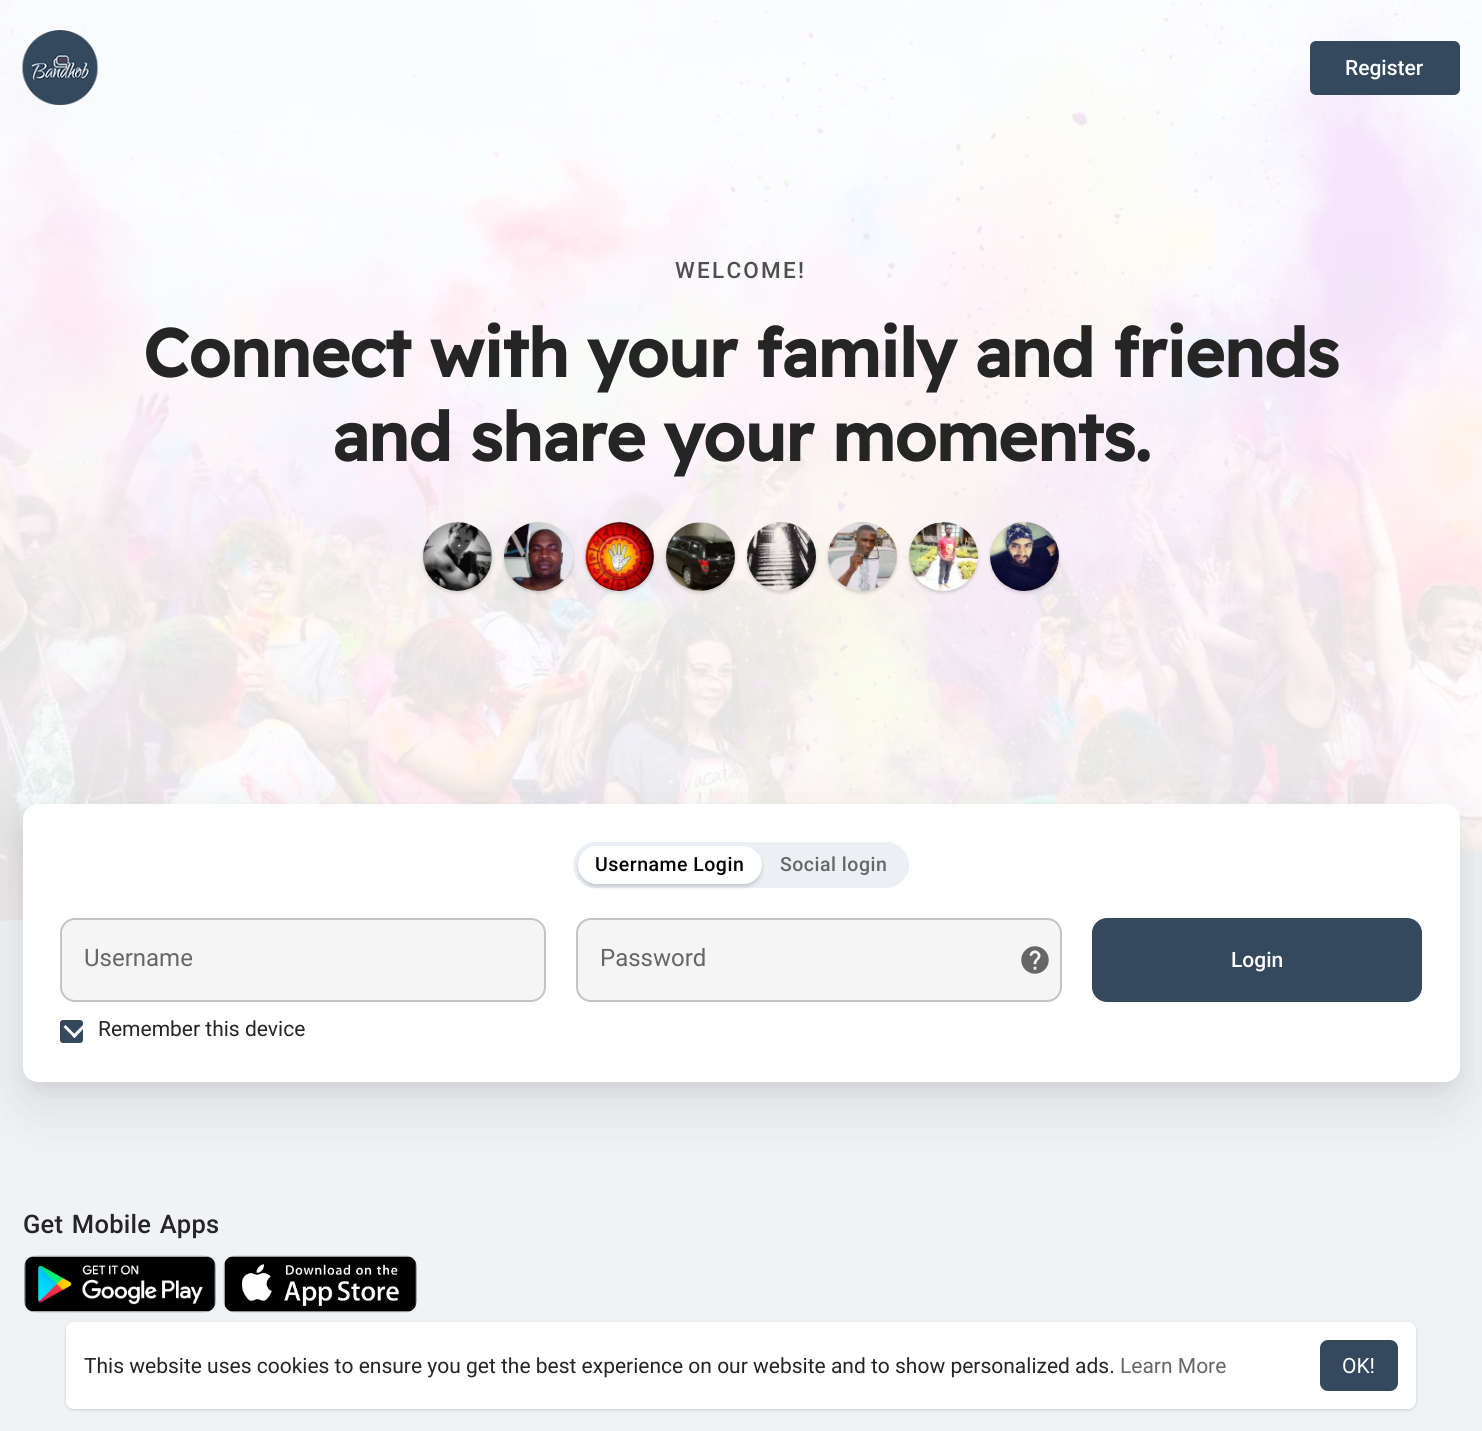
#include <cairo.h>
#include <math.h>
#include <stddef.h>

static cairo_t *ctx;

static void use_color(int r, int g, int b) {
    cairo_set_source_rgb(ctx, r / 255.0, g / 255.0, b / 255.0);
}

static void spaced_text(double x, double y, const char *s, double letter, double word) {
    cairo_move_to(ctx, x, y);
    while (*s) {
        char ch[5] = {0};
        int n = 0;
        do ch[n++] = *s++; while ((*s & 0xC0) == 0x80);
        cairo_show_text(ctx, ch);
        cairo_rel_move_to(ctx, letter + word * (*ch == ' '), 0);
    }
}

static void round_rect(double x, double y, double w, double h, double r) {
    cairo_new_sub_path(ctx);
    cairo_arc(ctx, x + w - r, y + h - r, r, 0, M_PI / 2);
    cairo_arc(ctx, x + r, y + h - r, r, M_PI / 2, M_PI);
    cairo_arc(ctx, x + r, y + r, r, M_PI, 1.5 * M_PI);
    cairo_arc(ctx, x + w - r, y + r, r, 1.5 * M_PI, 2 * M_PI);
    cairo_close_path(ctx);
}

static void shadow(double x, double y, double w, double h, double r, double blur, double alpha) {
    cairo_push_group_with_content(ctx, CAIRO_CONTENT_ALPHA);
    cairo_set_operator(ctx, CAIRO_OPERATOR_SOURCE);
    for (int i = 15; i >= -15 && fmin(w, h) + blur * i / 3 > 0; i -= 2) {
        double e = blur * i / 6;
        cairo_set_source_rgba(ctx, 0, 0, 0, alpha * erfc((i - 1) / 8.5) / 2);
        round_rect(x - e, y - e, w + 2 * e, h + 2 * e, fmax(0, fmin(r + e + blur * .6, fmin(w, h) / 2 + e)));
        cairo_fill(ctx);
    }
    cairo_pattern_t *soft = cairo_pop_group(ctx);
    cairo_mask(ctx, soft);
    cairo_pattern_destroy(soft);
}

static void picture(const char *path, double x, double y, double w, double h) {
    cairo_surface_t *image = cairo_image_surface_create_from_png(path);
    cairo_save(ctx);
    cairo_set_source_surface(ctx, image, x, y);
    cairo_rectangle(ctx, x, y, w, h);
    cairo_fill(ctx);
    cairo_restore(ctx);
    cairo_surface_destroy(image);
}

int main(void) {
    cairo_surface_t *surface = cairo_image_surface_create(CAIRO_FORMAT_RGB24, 1482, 1431);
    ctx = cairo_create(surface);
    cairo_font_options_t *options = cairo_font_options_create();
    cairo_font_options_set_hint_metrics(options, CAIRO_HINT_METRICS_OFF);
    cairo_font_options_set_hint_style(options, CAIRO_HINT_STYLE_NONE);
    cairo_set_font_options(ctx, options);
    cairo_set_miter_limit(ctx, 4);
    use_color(240, 242, 245);
    cairo_paint(ctx);
    use_color(255, 255, 255);
    cairo_rectangle(ctx, 0, 0, 1482, 921);
    cairo_fill(ctx);
    picture("img1.png", 0, 0, 1482, 921);
    picture("img2.png", 22, 30, 76, 75);
    use_color(52, 73, 94);
    round_rect(1310, 41, 150, 54, 6);
    cairo_fill(ctx);
    cairo_select_font_face(ctx, "Roboto Medium", CAIRO_FONT_SLANT_NORMAL, CAIRO_FONT_WEIGHT_NORMAL);
    cairo_set_font_size(ctx, 21);
    use_color(255, 255, 255);
    cairo_move_to(ctx, 1345, 75);
    cairo_show_text(ctx, "Register");
    cairo_set_font_size(ctx, 22.5);
    use_color(80, 79, 80);
    spaced_text(675, 278, "WELCOME!", 2.25, 0);
    cairo_select_font_face(ctx, "Readex Pro", CAIRO_FONT_SLANT_NORMAL, CAIRO_FONT_WEIGHT_BOLD);
    cairo_set_font_size(ctx, 67.5);
    use_color(37, 37, 37);
    spaced_text(143, 377, "Connect with your family and friends", -0.75, 0);
    spaced_text(332, 461, "and share your moments.", -0.75, 0);
    use_color(0, 0, 0);
    shadow(423, 524, 69, 69, 34.5, 1.5, 0.06);
    shadow(423, 524, 69, 69, 34.5, 2, 0.1);
    picture("img3.png", 423, 522, 69, 69);
    shadow(504, 524, 69, 69, 34.5, 1.5, 0.06);
    shadow(504, 524, 69, 69, 34.5, 2, 0.1);
    picture("img4.png", 504, 522, 69, 69);
    shadow(585, 524, 69, 69, 34.5, 1.5, 0.06);
    shadow(585, 524, 69, 69, 34.5, 2, 0.1);
    picture("img5.png", 585, 522, 69, 69);
    shadow(666, 524, 69, 69, 34.5, 1.5, 0.06);
    shadow(666, 524, 69, 69, 34.5, 2, 0.1);
    picture("img6.png", 666, 522, 69, 69);
    shadow(747, 524, 69, 69, 34.5, 1.5, 0.06);
    shadow(747, 524, 69, 69, 34.5, 2, 0.1);
    picture("img7.png", 747, 522, 69, 69);
    shadow(828, 524, 69, 69, 34.5, 1.5, 0.06);
    shadow(828, 524, 69, 69, 34.5, 2, 0.1);
    picture("img8.png", 828, 522, 69, 69);
    shadow(909, 524, 69, 69, 34.5, 1.5, 0.06);
    shadow(909, 524, 69, 69, 34.5, 2, 0.1);
    picture("img9.png", 909, 522, 69, 69);
    shadow(990, 524, 69, 69, 34.5, 1.5, 0.06);
    shadow(990, 524, 69, 69, 34.5, 2, 0.1);
    picture("img10.png", 990, 522, 69, 69);
    cairo_save(ctx);
    cairo_rectangle(ctx, 0, 0, 1482, 969);
    cairo_clip(ctx);
    use_color(240, 242, 245);
    cairo_new_path(ctx);
    cairo_move_to(ctx, -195, 930);
    cairo_line_to(ctx, 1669, 842);
    cairo_line_to(ctx, 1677, 1022);
    cairo_line_to(ctx, -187, 1109);
    cairo_close_path(ctx);
    cairo_fill(ctx);
    cairo_restore(ctx);
    shadow(23, 827, 1437, 277, 15, 30, 0.1);
    shadow(23, 812, 1437, 277, 15, 7.5, 0.05);
    use_color(255, 255, 255);
    round_rect(23, 804, 1437, 278, 15);
    cairo_fill(ctx);
    use_color(236, 240, 245);
    round_rect(573, 842, 336, 46, 23);
    cairo_fill(ctx);
    use_color(0, 0, 0);
    shadow(578, 849, 184, 38, 19, 2, 0.15);
    use_color(255, 255, 255);
    round_rect(578, 846, 184, 38, 19);
    cairo_fill(ctx);
    cairo_select_font_face(ctx, "Roboto Medium", CAIRO_FONT_SLANT_NORMAL, CAIRO_FONT_WEIGHT_NORMAL);
    cairo_set_font_size(ctx, 19.5);
    use_color(0, 0, 0);
    spaced_text(595, 871, "Username Login", 0.5, 0);
    use_color(102, 102, 102);
    spaced_text(780, 871, "Social login", 0.5, 0);
    use_color(245, 245, 245);
    round_rect(60, 918, 486, 84, 15);
    cairo_fill(ctx);
    round_rect(61, 919, 484, 82, 14);
    cairo_set_source_rgba(ctx, 0, 0, 0, 0.2);
    cairo_stroke(ctx);
    cairo_select_font_face(ctx, "Roboto", CAIRO_FONT_SLANT_NORMAL, CAIRO_FONT_WEIGHT_NORMAL);
    cairo_set_font_size(ctx, 24);
    use_color(102, 102, 102);
    cairo_move_to(ctx, 84, 966);
    cairo_show_text(ctx, "Username");
    use_color(245, 245, 245);
    round_rect(576, 918, 486, 84, 15);
    cairo_fill(ctx);
    round_rect(577, 919, 484, 82, 14);
    cairo_set_source_rgba(ctx, 0, 0, 0, 0.2);
    cairo_stroke(ctx);
    use_color(102, 102, 102);
    cairo_move_to(ctx, 600, 966);
    cairo_show_text(ctx, "Password");
    picture("img11.png", 1021, 946, 28, 28);
    use_color(52, 73, 94);
    round_rect(1092, 918, 330, 84, 15);
    cairo_fill(ctx);
    cairo_select_font_face(ctx, "Roboto Medium", CAIRO_FONT_SLANT_NORMAL, CAIRO_FONT_WEIGHT_NORMAL);
    cairo_set_font_size(ctx, 21);
    use_color(255, 255, 255);
    cairo_move_to(ctx, 1231, 967);
    cairo_show_text(ctx, "Login");
    use_color(52, 73, 94);
    round_rect(60, 1020, 23, 23, 3);
    cairo_fill(ctx);
    cairo_select_font_face(ctx, "Roboto", CAIRO_FONT_SLANT_NORMAL, CAIRO_FONT_WEIGHT_NORMAL);
    use_color(37, 37, 37);
    cairo_move_to(ctx, 98, 1036);
    cairo_show_text(ctx, "Remember this device");
    use_color(255, 255, 255);
    cairo_new_path(ctx);
    cairo_move_to(ctx, 72, 1036);
    cairo_line_to(ctx, 83, 1025);
    cairo_line_to(ctx, 85, 1027);
    cairo_line_to(ctx, 74.5, 1038);
    cairo_close_path(ctx);
    cairo_fill(ctx);
    cairo_new_path(ctx);
    cairo_move_to(ctx, 63.5, 1027);
    cairo_line_to(ctx, 65.5, 1025);
    cairo_line_to(ctx, 76.5, 1036);
    cairo_line_to(ctx, 74.5, 1038);
    cairo_close_path(ctx);
    cairo_fill(ctx);
    cairo_select_font_face(ctx, "Roboto Medium", CAIRO_FONT_SLANT_NORMAL, CAIRO_FONT_WEIGHT_NORMAL);
    cairo_set_font_size(ctx, 25.5);
    use_color(37, 37, 37);
    spaced_text(23, 1233, "Get Mobile Apps", 0.25, 2);
    picture("img12.png", 24, 1255, 192, 58);
    picture("img13.png", 223, 1255, 194, 58);
    use_color(0, 0, 0);
    shadow(66, 1323, 1350, 87, 8, 1.5, 0.06);
    shadow(66, 1323, 1350, 87, 8, 2, 0.1);
    use_color(255, 255, 255);
    round_rect(66, 1322, 1350, 87, 8);
    cairo_fill(ctx);
    cairo_select_font_face(ctx, "Roboto", CAIRO_FONT_SLANT_NORMAL, CAIRO_FONT_WEIGHT_NORMAL);
    cairo_set_font_size(ctx, 21);
    use_color(37, 37, 37);
    cairo_move_to(ctx, 84, 1373);
    cairo_show_text(ctx, "This website uses cookies to ensure you get the best experience on our website and to show personalized ads.");
    use_color(102, 102, 102);
    cairo_move_to(ctx, 1120, 1373);
    cairo_show_text(ctx, "Learn More");
    use_color(52, 73, 94);
    round_rect(1320, 1340, 78, 51, 8);
    cairo_fill(ctx);
    use_color(255, 255, 255);
    cairo_move_to(ctx, 1342, 1373);
    cairo_show_text(ctx, "OK!");
    cairo_surface_write_to_png(surface, "result.png");
    cairo_font_options_destroy(options);
    cairo_destroy(ctx);
    cairo_surface_destroy(surface);
    return 0;
}
